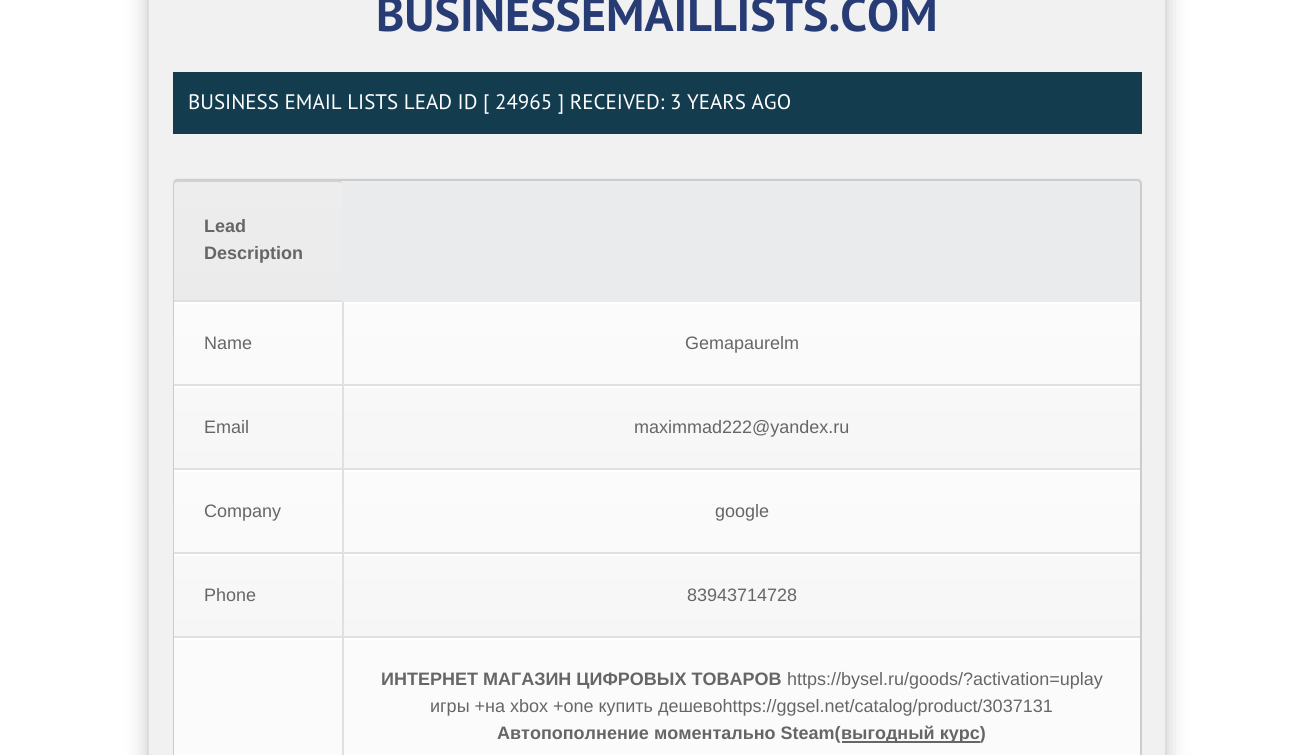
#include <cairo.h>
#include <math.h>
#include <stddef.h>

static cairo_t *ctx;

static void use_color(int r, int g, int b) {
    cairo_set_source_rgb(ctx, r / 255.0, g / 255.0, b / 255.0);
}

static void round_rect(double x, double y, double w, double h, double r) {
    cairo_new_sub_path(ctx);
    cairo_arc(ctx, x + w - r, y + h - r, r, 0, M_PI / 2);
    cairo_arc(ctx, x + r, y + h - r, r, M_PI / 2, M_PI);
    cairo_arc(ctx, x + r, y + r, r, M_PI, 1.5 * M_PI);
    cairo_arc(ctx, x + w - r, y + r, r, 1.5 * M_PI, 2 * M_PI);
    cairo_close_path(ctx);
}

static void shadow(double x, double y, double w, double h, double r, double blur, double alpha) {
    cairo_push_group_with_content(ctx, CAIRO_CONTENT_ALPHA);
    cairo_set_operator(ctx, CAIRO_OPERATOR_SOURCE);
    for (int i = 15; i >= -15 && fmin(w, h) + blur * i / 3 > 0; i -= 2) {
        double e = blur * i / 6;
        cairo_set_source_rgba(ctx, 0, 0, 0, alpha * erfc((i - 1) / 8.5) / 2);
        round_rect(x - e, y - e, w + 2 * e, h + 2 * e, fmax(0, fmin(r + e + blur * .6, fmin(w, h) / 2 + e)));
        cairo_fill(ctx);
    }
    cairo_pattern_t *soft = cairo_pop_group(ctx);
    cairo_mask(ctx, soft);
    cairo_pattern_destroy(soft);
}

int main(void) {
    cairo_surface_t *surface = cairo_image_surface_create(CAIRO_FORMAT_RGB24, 1314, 755);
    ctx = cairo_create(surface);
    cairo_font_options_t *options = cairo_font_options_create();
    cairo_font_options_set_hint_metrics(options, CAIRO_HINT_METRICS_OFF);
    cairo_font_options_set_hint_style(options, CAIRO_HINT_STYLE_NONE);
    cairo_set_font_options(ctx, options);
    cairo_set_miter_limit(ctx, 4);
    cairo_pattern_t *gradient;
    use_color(255, 255, 255);
    cairo_paint(ctx);
    use_color(50, 50, 50);
    shadow(147, -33, 1020, 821, 0, 11, 0.27);
    use_color(241, 241, 241);
    cairo_rectangle(ctx, 148, -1, 1018, 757);
    cairo_fill_preserve(ctx);
    use_color(221, 221, 221);
    cairo_stroke(ctx);
    cairo_select_font_face(ctx, "PT Sans", CAIRO_FONT_SLANT_NORMAL, CAIRO_FONT_WEIGHT_BOLD);
    cairo_set_font_size(ctx, 48);
    use_color(39, 60, 117);
    cairo_move_to(ctx, 376, 31);
    cairo_show_text(ctx, "BUSINESSEMAILLISTS.COM");
    use_color(19, 60, 79);
    cairo_rectangle(ctx, 173, 72, 969, 62);
    cairo_fill(ctx);
    cairo_select_font_face(ctx, "PT Sans", CAIRO_FONT_SLANT_NORMAL, CAIRO_FONT_WEIGHT_NORMAL);
    cairo_set_font_size(ctx, 21);
    use_color(255, 255, 255);
    cairo_move_to(ctx, 188, 109);
    cairo_show_text(ctx, "BUSINESS EMAIL LISTS LEAD ID [ 24965 ] RECEIVED: 3 YEARS AGO");
    cairo_save(ctx);
    cairo_rectangle(ctx, 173, 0, 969, 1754);
    cairo_clip(ctx);
    use_color(209, 209, 209);
    shadow(173, 180, 969, 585, 5, 1.5, 1);
    cairo_restore(ctx);
    use_color(234, 235, 236);
    round_rect(174, 180, 967, 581, 4);
    cairo_fill_preserve(ctx);
    use_color(204, 204, 204);
    cairo_stroke(ctx);
    cairo_save(ctx);
    cairo_new_path(ctx);
    cairo_move_to(ctx, 179, 180);
    cairo_line_to(ctx, 337, 180);
    cairo_curve_to(ctx, 340, 180, 342, 182, 342, 185);
    cairo_line_to(ctx, 342, 302);
    cairo_line_to(ctx, 174, 302);
    cairo_line_to(ctx, 174, 185);
    cairo_curve_to(ctx, 174, 182, 176, 180, 179, 180);
    cairo_close_path(ctx);
    cairo_clip(ctx);
    gradient = cairo_pattern_create_linear(174, 182, 174, 300);
    cairo_pattern_add_color_stop_rgba(gradient, 0, 0.929, 0.929, 0.929, 1);
    cairo_pattern_add_color_stop_rgba(gradient, 1, 0.922, 0.922, 0.922, 1);
    cairo_set_source(ctx, gradient);
    cairo_pattern_destroy(gradient);
    cairo_rectangle(ctx, 174, 182, 168, 118);
    cairo_fill(ctx);
    cairo_restore(ctx);
    use_color(209, 209, 209);
    cairo_new_path(ctx);
    cairo_move_to(ctx, 178, 180);
    cairo_curve_to(ctx, 176, 180, 174, 182, 174, 184);
    cairo_curve_to(ctx, 174, 183, 176, 182, 178, 182);
    cairo_line_to(ctx, 338, 182);
    cairo_curve_to(ctx, 340, 182, 342, 183, 342, 184);
    cairo_curve_to(ctx, 342, 182, 340, 180, 338, 180);
    cairo_close_path(ctx);
    cairo_fill(ctx);
    use_color(224, 224, 224);
    cairo_rectangle(ctx, 174, 300, 168, 2);
    cairo_fill(ctx);
    cairo_select_font_face(ctx, "Liberation Sans", CAIRO_FONT_SLANT_NORMAL, CAIRO_FONT_WEIGHT_BOLD);
    cairo_set_font_size(ctx, 18);
    use_color(102, 102, 102);
    cairo_move_to(ctx, 204, 232);
    cairo_show_text(ctx, "Lead");
    cairo_move_to(ctx, 204, 259);
    cairo_show_text(ctx, "Description");
    gradient = cairo_pattern_create_linear(174, 303, 174, 384);
    cairo_pattern_add_color_stop_rgba(gradient, 0, 0.984, 0.984, 0.984, 1);
    cairo_pattern_add_color_stop_rgba(gradient, 1, 0.98, 0.98, 0.98, 1);
    cairo_set_source(ctx, gradient);
    cairo_pattern_destroy(gradient);
    cairo_rectangle(ctx, 174, 304, 168, 80);
    cairo_fill(ctx);
    use_color(255, 255, 255);
    cairo_rectangle(ctx, 174, 302, 966, 2);
    cairo_fill(ctx);
    use_color(224, 224, 224);
    cairo_rectangle(ctx, 174, 384, 966, 2);
    cairo_fill(ctx);
    cairo_select_font_face(ctx, "Liberation Sans", CAIRO_FONT_SLANT_NORMAL, CAIRO_FONT_WEIGHT_NORMAL);
    use_color(102, 102, 102);
    cairo_move_to(ctx, 204, 349);
    cairo_show_text(ctx, "Name");
    gradient = cairo_pattern_create_linear(344, 303, 344, 384);
    cairo_pattern_add_color_stop_rgba(gradient, 0, 0.984, 0.984, 0.984, 1);
    cairo_pattern_add_color_stop_rgba(gradient, 1, 0.98, 0.98, 0.98, 1);
    cairo_set_source(ctx, gradient);
    cairo_pattern_destroy(gradient);
    cairo_rectangle(ctx, 344, 304, 796, 80);
    cairo_fill(ctx);
    use_color(224, 224, 224);
    cairo_rectangle(ctx, 342, 302, 2, 84);
    cairo_fill(ctx);
    use_color(102, 102, 102);
    cairo_move_to(ctx, 685, 349);
    cairo_show_text(ctx, "Gemapaurelm");
    gradient = cairo_pattern_create_linear(174, 387, 174, 468);
    cairo_pattern_add_color_stop_rgba(gradient, 0, 0.973, 0.973, 0.973, 1);
    cairo_pattern_add_color_stop_rgba(gradient, 1, 0.965, 0.965, 0.965, 1);
    cairo_set_source(ctx, gradient);
    cairo_pattern_destroy(gradient);
    cairo_rectangle(ctx, 174, 388, 168, 80);
    cairo_fill(ctx);
    use_color(255, 255, 255);
    cairo_rectangle(ctx, 174, 386, 966, 2);
    cairo_fill(ctx);
    use_color(224, 224, 224);
    cairo_rectangle(ctx, 174, 468, 966, 2);
    cairo_fill(ctx);
    use_color(102, 102, 102);
    cairo_move_to(ctx, 204, 433);
    cairo_show_text(ctx, "Email");
    gradient = cairo_pattern_create_linear(344, 387, 344, 468);
    cairo_pattern_add_color_stop_rgba(gradient, 0, 0.973, 0.973, 0.973, 1);
    cairo_pattern_add_color_stop_rgba(gradient, 1, 0.965, 0.965, 0.965, 1);
    cairo_set_source(ctx, gradient);
    cairo_pattern_destroy(gradient);
    cairo_rectangle(ctx, 344, 388, 796, 80);
    cairo_fill(ctx);
    use_color(224, 224, 224);
    cairo_rectangle(ctx, 342, 386, 2, 84);
    cairo_fill(ctx);
    use_color(102, 102, 102);
    cairo_move_to(ctx, 634, 433);
    cairo_show_text(ctx, "maximmad222@yandex.ru");
    gradient = cairo_pattern_create_linear(174, 471, 174, 552);
    cairo_pattern_add_color_stop_rgba(gradient, 0, 0.984, 0.984, 0.984, 1);
    cairo_pattern_add_color_stop_rgba(gradient, 1, 0.98, 0.98, 0.98, 1);
    cairo_set_source(ctx, gradient);
    cairo_pattern_destroy(gradient);
    cairo_rectangle(ctx, 174, 472, 168, 80);
    cairo_fill(ctx);
    use_color(255, 255, 255);
    cairo_rectangle(ctx, 174, 470, 966, 2);
    cairo_fill(ctx);
    use_color(224, 224, 224);
    cairo_rectangle(ctx, 174, 552, 966, 2);
    cairo_fill(ctx);
    use_color(102, 102, 102);
    cairo_move_to(ctx, 204, 517);
    cairo_show_text(ctx, "Company");
    gradient = cairo_pattern_create_linear(344, 471, 344, 552);
    cairo_pattern_add_color_stop_rgba(gradient, 0, 0.984, 0.984, 0.984, 1);
    cairo_pattern_add_color_stop_rgba(gradient, 1, 0.98, 0.98, 0.98, 1);
    cairo_set_source(ctx, gradient);
    cairo_pattern_destroy(gradient);
    cairo_rectangle(ctx, 344, 472, 796, 80);
    cairo_fill(ctx);
    use_color(224, 224, 224);
    cairo_rectangle(ctx, 342, 470, 2, 84);
    cairo_fill(ctx);
    use_color(102, 102, 102);
    cairo_move_to(ctx, 715, 517);
    cairo_show_text(ctx, "google");
    gradient = cairo_pattern_create_linear(174, 555, 174, 636);
    cairo_pattern_add_color_stop_rgba(gradient, 0, 0.973, 0.973, 0.973, 1);
    cairo_pattern_add_color_stop_rgba(gradient, 1, 0.965, 0.965, 0.965, 1);
    cairo_set_source(ctx, gradient);
    cairo_pattern_destroy(gradient);
    cairo_rectangle(ctx, 174, 556, 168, 80);
    cairo_fill(ctx);
    use_color(255, 255, 255);
    cairo_rectangle(ctx, 174, 554, 966, 2);
    cairo_fill(ctx);
    use_color(224, 224, 224);
    cairo_rectangle(ctx, 174, 636, 966, 2);
    cairo_fill(ctx);
    use_color(102, 102, 102);
    cairo_move_to(ctx, 204, 601);
    cairo_show_text(ctx, "Phone");
    gradient = cairo_pattern_create_linear(344, 555, 344, 636);
    cairo_pattern_add_color_stop_rgba(gradient, 0, 0.973, 0.973, 0.973, 1);
    cairo_pattern_add_color_stop_rgba(gradient, 1, 0.965, 0.965, 0.965, 1);
    cairo_set_source(ctx, gradient);
    cairo_pattern_destroy(gradient);
    cairo_rectangle(ctx, 344, 556, 796, 80);
    cairo_fill(ctx);
    use_color(224, 224, 224);
    cairo_rectangle(ctx, 342, 554, 2, 84);
    cairo_fill(ctx);
    use_color(102, 102, 102);
    cairo_move_to(ctx, 687, 601);
    cairo_show_text(ctx, "83943714728");
    gradient = cairo_pattern_create_linear(174, 639, 174, 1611);
    cairo_pattern_add_color_stop_rgba(gradient, 0, 0.984, 0.984, 0.984, 1);
    cairo_pattern_add_color_stop_rgba(gradient, 1, 0.98, 0.98, 0.98, 1);
    cairo_set_source(ctx, gradient);
    cairo_pattern_destroy(gradient);
    cairo_rectangle(ctx, 174, 640, 168, 115);
    cairo_fill(ctx);
    use_color(255, 255, 255);
    cairo_rectangle(ctx, 174, 638, 966, 2);
    cairo_fill(ctx);
    gradient = cairo_pattern_create_linear(344, 639, 344, 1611);
    cairo_pattern_add_color_stop_rgba(gradient, 0, 0.984, 0.984, 0.984, 1);
    cairo_pattern_add_color_stop_rgba(gradient, 1, 0.98, 0.98, 0.98, 1);
    cairo_set_source(ctx, gradient);
    cairo_pattern_destroy(gradient);
    cairo_rectangle(ctx, 344, 640, 796, 115);
    cairo_fill(ctx);
    use_color(224, 224, 224);
    cairo_rectangle(ctx, 342, 638, 2, 117);
    cairo_fill(ctx);
    cairo_select_font_face(ctx, "Liberation Sans", CAIRO_FONT_SLANT_NORMAL, CAIRO_FONT_WEIGHT_BOLD);
    use_color(102, 102, 102);
    cairo_move_to(ctx, 381, 685);
    cairo_show_text(ctx, "ИНТЕРНЕТ МАГАЗИН ЦИФРОВЫХ ТОВАРОВ");
    cairo_select_font_face(ctx, "Liberation Sans", CAIRO_FONT_SLANT_NORMAL, CAIRO_FONT_WEIGHT_NORMAL);
    cairo_move_to(ctx, 787, 685);
    cairo_show_text(ctx, "https://bysel.ru/goods/?activation=uplay");
    cairo_move_to(ctx, 430, 712);
    cairo_show_text(ctx, "игры +на xbox +one купить дешевоhttps://ggsel.net/catalog/product/3037131");
    cairo_select_font_face(ctx, "Liberation Sans", CAIRO_FONT_SLANT_NORMAL, CAIRO_FONT_WEIGHT_BOLD);
    cairo_move_to(ctx, 497, 739);
    cairo_show_text(ctx, "Автопополнение моментально Steam(");
    cairo_rectangle(ctx, 842, 741, 138, 2);
    cairo_fill(ctx);
    cairo_move_to(ctx, 841, 739);
    cairo_show_text(ctx, "выгодный курс)");
    cairo_surface_write_to_png(surface, "result.png");
    cairo_font_options_destroy(options);
    cairo_destroy(ctx);
    cairo_surface_destroy(surface);
    return 0;
}
